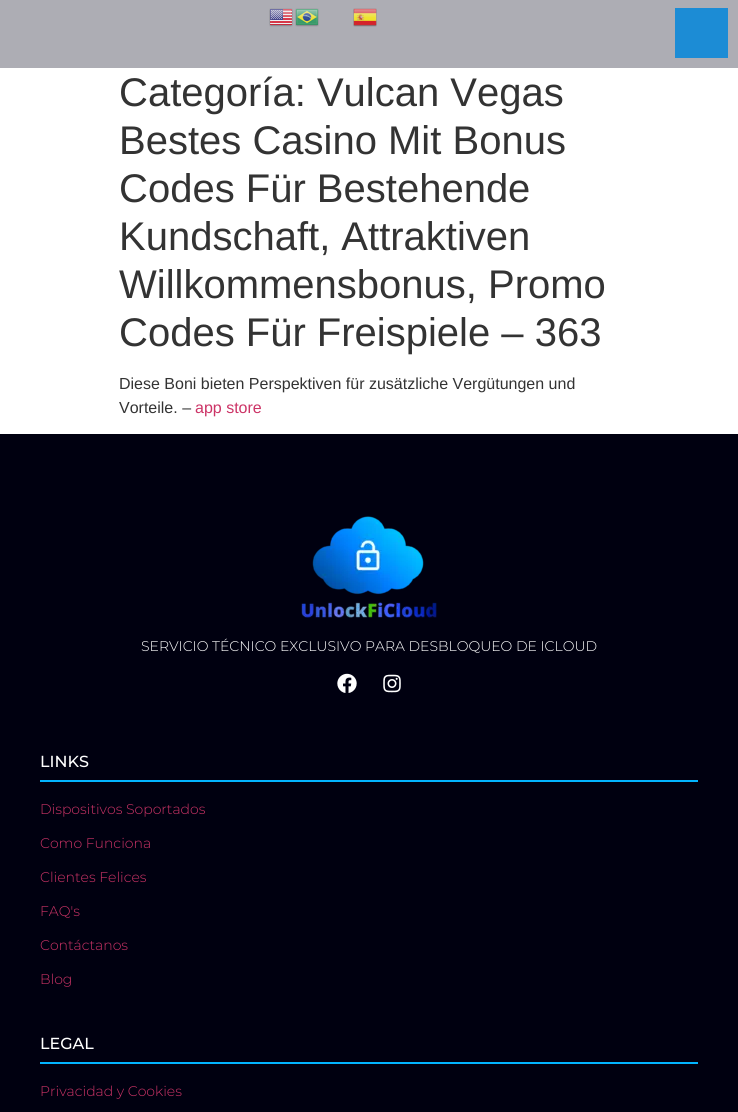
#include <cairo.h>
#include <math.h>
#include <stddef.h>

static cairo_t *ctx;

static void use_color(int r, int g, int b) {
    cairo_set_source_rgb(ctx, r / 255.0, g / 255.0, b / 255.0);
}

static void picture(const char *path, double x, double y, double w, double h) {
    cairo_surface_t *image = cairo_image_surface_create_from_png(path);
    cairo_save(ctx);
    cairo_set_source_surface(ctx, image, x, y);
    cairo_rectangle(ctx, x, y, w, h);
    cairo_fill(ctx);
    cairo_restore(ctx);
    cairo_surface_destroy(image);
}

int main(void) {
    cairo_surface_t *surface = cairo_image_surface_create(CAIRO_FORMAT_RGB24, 738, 1112);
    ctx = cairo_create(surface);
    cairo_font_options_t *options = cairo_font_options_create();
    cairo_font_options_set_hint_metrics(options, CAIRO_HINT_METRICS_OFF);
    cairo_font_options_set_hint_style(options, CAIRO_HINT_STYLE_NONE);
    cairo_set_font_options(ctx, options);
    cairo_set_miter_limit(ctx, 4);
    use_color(255, 255, 255);
    cairo_paint(ctx);
    use_color(173, 173, 180);
    cairo_rectangle(ctx, 0, 0, 738, 68);
    cairo_fill(ctx);
    picture("img1.png", 269, 8, 24, 19);
    picture("img2.png", 295, 8, 24, 19);
    picture("img3.png", 353, 8, 24, 19);
    use_color(28, 140, 213);
    cairo_rectangle(ctx, 675, 8, 53, 50);
    cairo_fill(ctx);
    cairo_select_font_face(ctx, "Liberation Sans", CAIRO_FONT_SLANT_NORMAL, CAIRO_FONT_WEIGHT_NORMAL);
    cairo_set_font_size(ctx, 40);
    use_color(51, 51, 51);
    cairo_move_to(ctx, 119, 106);
    cairo_show_text(ctx, "Categoría: Vulcan Vegas");
    cairo_move_to(ctx, 119, 154);
    cairo_show_text(ctx, "Bestes Сasino Mit Bonus");
    cairo_move_to(ctx, 119, 202);
    cairo_show_text(ctx, "Codes Für Bestehende");
    cairo_move_to(ctx, 119, 250);
    cairo_show_text(ctx, "Kundschaft, Attraktiven");
    cairo_move_to(ctx, 119, 298);
    cairo_show_text(ctx, "Willkommensbonus, Promo");
    cairo_move_to(ctx, 119, 346);
    cairo_show_text(ctx, "Codes Für Freispiele – 363");
    cairo_set_font_size(ctx, 16);
    cairo_move_to(ctx, 119, 389);
    cairo_show_text(ctx, "Diese Boni bieten Perspektiven für zusätzliche Vergütungen und");
    cairo_move_to(ctx, 119, 413);
    cairo_show_text(ctx, "Vorteile. –");
    use_color(204, 51, 102);
    cairo_move_to(ctx, 195, 413);
    cairo_show_text(ctx, "app store");
    use_color(0, 0, 16);
    cairo_rectangle(ctx, 0, 434, 738, 678);
    cairo_fill(ctx);
    picture("img4.png", 301, 516, 136, 102);
    cairo_select_font_face(ctx, "Montserrat Light", CAIRO_FONT_SLANT_NORMAL, CAIRO_FONT_WEIGHT_NORMAL);
    cairo_set_font_size(ctx, 14);
    use_color(255, 255, 255);
    cairo_move_to(ctx, 141, 651);
    cairo_show_text(ctx, "SERVICIO TÉCNICO EXCLUSIVO PARA DESBLOQUEO DE ICLOUD");
    picture("img5.png", 337, 673, 20, 20);
    picture("img6.png", 383, 674, 18, 19);
    use_color(2, 180, 255);
    cairo_rectangle(ctx, 40, 780, 658, 2);
    cairo_fill(ctx);
    cairo_select_font_face(ctx, "Montserrat Medium", CAIRO_FONT_SLANT_NORMAL, CAIRO_FONT_WEIGHT_NORMAL);
    cairo_set_font_size(ctx, 16);
    use_color(255, 255, 255);
    cairo_move_to(ctx, 40, 767);
    cairo_show_text(ctx, "LINKS");
    cairo_select_font_face(ctx, "Montserrat Light", CAIRO_FONT_SLANT_NORMAL, CAIRO_FONT_WEIGHT_NORMAL);
    cairo_set_font_size(ctx, 14);
    use_color(204, 51, 102);
    cairo_move_to(ctx, 40, 814);
    cairo_show_text(ctx, "Dispositivos Soportados");
    cairo_move_to(ctx, 40, 848);
    cairo_show_text(ctx, "Como Funciona");
    cairo_move_to(ctx, 40, 882);
    cairo_show_text(ctx, "Clientes Felices");
    cairo_move_to(ctx, 40, 916);
    cairo_show_text(ctx, "FAQ's");
    cairo_move_to(ctx, 40, 950);
    cairo_show_text(ctx, "Contáctanos");
    cairo_move_to(ctx, 40, 984);
    cairo_show_text(ctx, "Blog");
    use_color(2, 180, 255);
    cairo_rectangle(ctx, 40, 1062, 658, 2);
    cairo_fill(ctx);
    cairo_select_font_face(ctx, "Montserrat Medium", CAIRO_FONT_SLANT_NORMAL, CAIRO_FONT_WEIGHT_NORMAL);
    cairo_set_font_size(ctx, 16);
    use_color(255, 255, 255);
    cairo_move_to(ctx, 40, 1049);
    cairo_show_text(ctx, "LEGAL");
    cairo_select_font_face(ctx, "Montserrat Light", CAIRO_FONT_SLANT_NORMAL, CAIRO_FONT_WEIGHT_NORMAL);
    cairo_set_font_size(ctx, 14);
    use_color(204, 51, 102);
    cairo_move_to(ctx, 40, 1096);
    cairo_show_text(ctx, "Privacidad y Cookies");
    cairo_surface_write_to_png(surface, "result.png");
    cairo_font_options_destroy(options);
    cairo_destroy(ctx);
    cairo_surface_destroy(surface);
    return 0;
}
